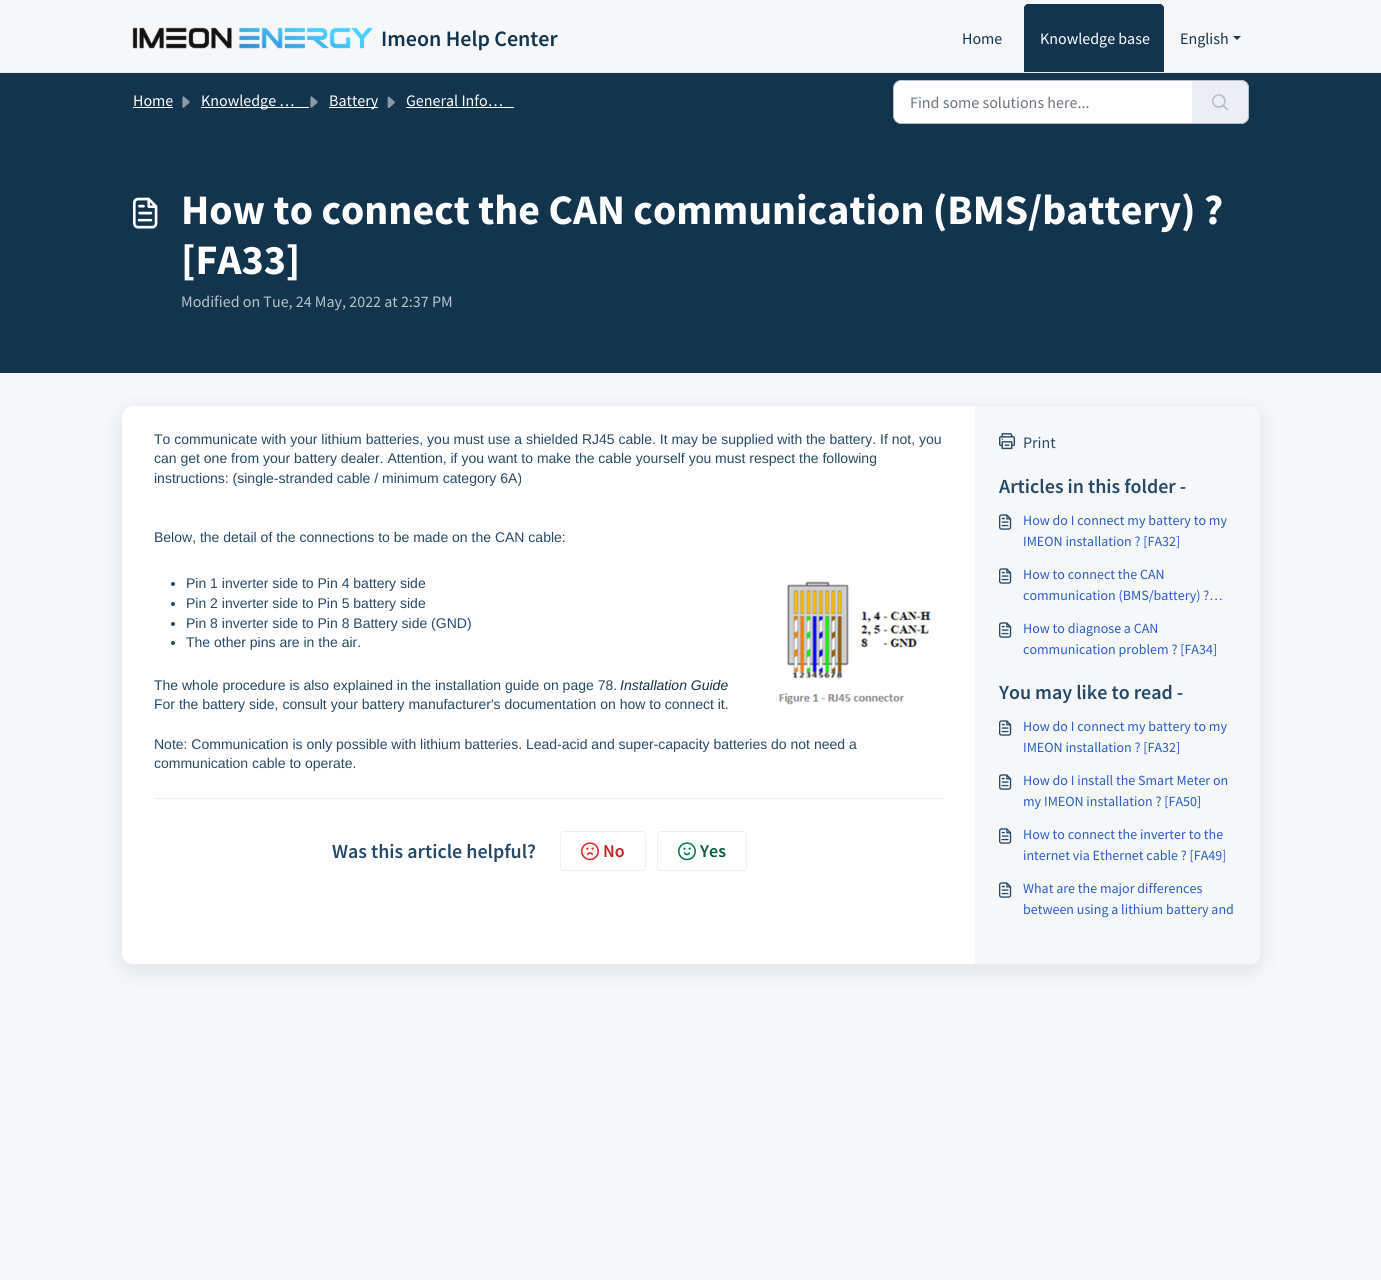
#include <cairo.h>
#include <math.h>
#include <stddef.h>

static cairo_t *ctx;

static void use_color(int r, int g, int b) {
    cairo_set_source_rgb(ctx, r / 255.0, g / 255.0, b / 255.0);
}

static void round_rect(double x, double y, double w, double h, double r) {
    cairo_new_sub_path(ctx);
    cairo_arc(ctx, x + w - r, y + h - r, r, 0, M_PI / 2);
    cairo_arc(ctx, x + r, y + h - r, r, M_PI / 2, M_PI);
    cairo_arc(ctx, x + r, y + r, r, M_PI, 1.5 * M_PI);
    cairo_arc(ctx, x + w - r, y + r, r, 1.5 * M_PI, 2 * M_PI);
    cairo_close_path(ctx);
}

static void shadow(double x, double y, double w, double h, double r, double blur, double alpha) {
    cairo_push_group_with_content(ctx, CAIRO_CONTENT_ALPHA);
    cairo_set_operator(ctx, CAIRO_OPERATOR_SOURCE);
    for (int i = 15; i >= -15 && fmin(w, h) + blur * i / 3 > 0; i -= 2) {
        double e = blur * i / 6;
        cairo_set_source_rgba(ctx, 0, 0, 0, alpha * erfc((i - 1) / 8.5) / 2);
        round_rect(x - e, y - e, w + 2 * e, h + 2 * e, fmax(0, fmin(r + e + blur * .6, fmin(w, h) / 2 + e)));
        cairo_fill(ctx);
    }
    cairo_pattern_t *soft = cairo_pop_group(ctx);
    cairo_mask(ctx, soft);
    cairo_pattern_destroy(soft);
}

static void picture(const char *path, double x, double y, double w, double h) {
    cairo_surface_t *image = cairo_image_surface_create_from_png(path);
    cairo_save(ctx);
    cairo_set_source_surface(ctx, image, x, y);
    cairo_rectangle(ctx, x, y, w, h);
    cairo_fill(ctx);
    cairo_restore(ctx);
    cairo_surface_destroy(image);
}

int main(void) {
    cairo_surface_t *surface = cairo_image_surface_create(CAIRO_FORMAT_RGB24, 1381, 1280);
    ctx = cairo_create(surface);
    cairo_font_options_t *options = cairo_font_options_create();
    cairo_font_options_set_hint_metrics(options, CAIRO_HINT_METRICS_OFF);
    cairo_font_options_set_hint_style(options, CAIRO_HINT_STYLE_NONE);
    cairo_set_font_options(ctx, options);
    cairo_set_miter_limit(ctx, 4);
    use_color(245, 247, 249);
    cairo_paint(ctx);
    use_color(235, 239, 243);
    cairo_rectangle(ctx, 0, 72, 1381, 1);
    cairo_fill(ctx);
    picture("img1.png", 132, 27, 241, 22);
    cairo_select_font_face(ctx, "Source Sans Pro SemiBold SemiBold", CAIRO_FONT_SLANT_NORMAL, CAIRO_FONT_WEIGHT_NORMAL);
    cairo_set_font_size(ctx, 22);
    use_color(18, 52, 77);
    cairo_move_to(ctx, 381, 46);
    cairo_show_text(ctx, "Imeon Help Center");
    cairo_select_font_face(ctx, "Source Sans Pro", CAIRO_FONT_SLANT_NORMAL, CAIRO_FONT_WEIGHT_NORMAL);
    cairo_set_font_size(ctx, 16);
    cairo_move_to(ctx, 962, 44);
    cairo_show_text(ctx, "Home");
    cairo_new_path(ctx);
    cairo_move_to(ctx, 1028, 4);
    cairo_line_to(ctx, 1160, 4);
    cairo_curve_to(ctx, 1162, 4, 1164, 6, 1164, 8);
    cairo_line_to(ctx, 1164, 72);
    cairo_line_to(ctx, 1024, 72);
    cairo_line_to(ctx, 1024, 8);
    cairo_curve_to(ctx, 1024, 6, 1026, 4, 1028, 4);
    cairo_close_path(ctx);
    cairo_fill(ctx);
    use_color(255, 255, 255);
    cairo_move_to(ctx, 1040, 44);
    cairo_show_text(ctx, "Knowledge base");
    use_color(18, 52, 77);
    cairo_move_to(ctx, 1180, 44);
    cairo_show_text(ctx, "English");
    cairo_new_path(ctx);
    cairo_move_to(ctx, 1233, 36);
    cairo_line_to(ctx, 1241, 36);
    cairo_line_to(ctx, 1237, 40);
    cairo_close_path(ctx);
    cairo_fill(ctx);
    cairo_rectangle(ctx, 0, 73, 1381, 300);
    cairo_fill(ctx);
    use_color(255, 255, 255);
    cairo_move_to(ctx, 133, 106);
    cairo_show_text(ctx, "Home");
    cairo_rectangle(ctx, 133, 107, 40, 1);
    cairo_fill(ctx);
    picture("img2.png", 182, 96, 8, 12);
    cairo_rectangle(ctx, 201, 107, 108, 1);
    cairo_fill(ctx);
    cairo_move_to(ctx, 201, 106);
    cairo_show_text(ctx, "Knowledge …");
    picture("img2.png", 310, 96, 8, 12);
    cairo_rectangle(ctx, 329, 107, 49, 1);
    cairo_fill(ctx);
    cairo_move_to(ctx, 329, 106);
    cairo_show_text(ctx, "Battery");
    picture("img3.png", 387, 96, 8, 12);
    cairo_move_to(ctx, 406, 106);
    cairo_show_text(ctx, "General Info…");
    cairo_rectangle(ctx, 406, 107, 108, 1);
    cairo_fill(ctx);
    cairo_new_path(ctx);
    cairo_move_to(ctx, 901, 80.5);
    cairo_line_to(ctx, 1192.5, 80.5);
    cairo_line_to(ctx, 1192.5, 123.5);
    cairo_line_to(ctx, 901, 123.5);
    cairo_curve_to(ctx, 897, 123.5, 893.5, 120, 893.5, 116);
    cairo_line_to(ctx, 893.5, 88);
    cairo_curve_to(ctx, 893.5, 84, 897, 80.5, 901, 80.5);
    cairo_close_path(ctx);
    cairo_fill_preserve(ctx);
    use_color(177, 189, 200);
    cairo_set_line_width(ctx, 1);
    cairo_stroke(ctx);
    use_color(108, 117, 125);
    cairo_move_to(ctx, 910, 108);
    cairo_show_text(ctx, "Find some solutions here...");
    use_color(235, 239, 243);
    cairo_new_path(ctx);
    cairo_move_to(ctx, 1192, 80);
    cairo_line_to(ctx, 1241, 80);
    cairo_curve_to(ctx, 1245.5, 80, 1249, 83.5, 1249, 88);
    cairo_line_to(ctx, 1249, 116);
    cairo_curve_to(ctx, 1249, 120.5, 1245.5, 124, 1241, 124);
    cairo_line_to(ctx, 1192, 124);
    cairo_close_path(ctx);
    cairo_fill(ctx);
    use_color(177, 189, 200);
    cairo_set_fill_rule(ctx, CAIRO_FILL_RULE_EVEN_ODD);
    cairo_new_path(ctx);
    cairo_move_to(ctx, 1192, 80);
    cairo_line_to(ctx, 1241, 80);
    cairo_curve_to(ctx, 1245, 80, 1249, 84, 1249, 88);
    cairo_line_to(ctx, 1249, 116);
    cairo_curve_to(ctx, 1249, 120, 1245, 124, 1241, 124);
    cairo_line_to(ctx, 1192, 124);
    cairo_close_path(ctx);
    cairo_move_to(ctx, 1192, 81);
    cairo_line_to(ctx, 1241, 81);
    cairo_curve_to(ctx, 1245, 81, 1248, 84, 1248, 88);
    cairo_line_to(ctx, 1248, 116);
    cairo_curve_to(ctx, 1248, 120, 1245, 123, 1241, 123);
    cairo_line_to(ctx, 1192, 123);
    cairo_close_path(ctx);
    cairo_fill(ctx);
    picture("img4.png", 1212, 94, 16, 17);
    picture("img5.png", 133, 197, 25, 32);
    cairo_select_font_face(ctx, "Source Sans Pro", CAIRO_FONT_SLANT_NORMAL, CAIRO_FONT_WEIGHT_BOLD);
    cairo_set_font_size(ctx, 42);
    use_color(255, 255, 255);
    cairo_move_to(ctx, 181, 224);
    cairo_show_text(ctx, "How to connect the CAN communication (BMS/battery) ?");
    cairo_move_to(ctx, 181, 274);
    cairo_show_text(ctx, "[FA33]");
    cairo_select_font_face(ctx, "Source Sans Pro", CAIRO_FONT_SLANT_NORMAL, CAIRO_FONT_WEIGHT_NORMAL);
    cairo_set_font_size(ctx, 16);
    use_color(184, 194, 202);
    cairo_move_to(ctx, 181, 307);
    cairo_show_text(ctx, "Modified on Tue, 24 May, 2022 at 2:37 PM");
    use_color(39, 49, 58);
    shadow(121, 411, 1140, 560, 12, 9.5, 0.1);
    use_color(255, 255, 255);
    round_rect(121.5, 405.5, 1139, 559, 11.5);
    cairo_fill_preserve(ctx);
    use_color(235, 239, 243);
    cairo_stroke(ctx);
    cairo_select_font_face(ctx, "Liberation Sans", CAIRO_FONT_SLANT_NORMAL, CAIRO_FONT_WEIGHT_NORMAL);
    cairo_set_font_size(ctx, 14);
    use_color(38, 73, 102);
    cairo_move_to(ctx, 154, 444);
    cairo_show_text(ctx, "To communicate with your lithium batteries, you must use a shielded RJ45 cable. It may be supplied with the battery. If not, you");
    cairo_move_to(ctx, 154, 463);
    cairo_show_text(ctx, "can get one from your battery dealer. Attention, if you want to make the cable yourself you must respect the following");
    cairo_move_to(ctx, 154, 483);
    cairo_show_text(ctx, "instructions: (single-stranded cable / minimum category 6A)");
    cairo_move_to(ctx, 154, 542);
    cairo_show_text(ctx, "Below, the detail of the connections to be made on the CAN cable:");
    cairo_new_path(ctx);
    cairo_arc(ctx, 173, 584, 2, 0, 2 * M_PI);
    cairo_fill(ctx);
    cairo_move_to(ctx, 186, 588);
    cairo_show_text(ctx, "Pin 1 inverter side to Pin 4 battery side");
    cairo_new_path(ctx);
    cairo_arc(ctx, 173, 604, 2, 0, 2 * M_PI);
    cairo_fill(ctx);
    cairo_move_to(ctx, 186, 608);
    cairo_show_text(ctx, "Pin 2 inverter side to Pin 5 battery side");
    cairo_new_path(ctx);
    cairo_arc(ctx, 173, 624, 2, 0, 2 * M_PI);
    cairo_fill(ctx);
    cairo_move_to(ctx, 186, 628);
    cairo_show_text(ctx, "Pin 8 inverter side to Pin 8 Battery side (GND)");
    cairo_new_path(ctx);
    cairo_arc(ctx, 173, 643, 2, 0, 2 * M_PI);
    cairo_fill(ctx);
    cairo_move_to(ctx, 186, 647);
    cairo_show_text(ctx, "The other pins are in the air.");
    picture("img6.png", 779, 581, 152, 124);
    cairo_move_to(ctx, 154, 690);
    cairo_show_text(ctx, "The whole procedure is also explained in the installation guide on page 78.");
    cairo_select_font_face(ctx, "Liberation Sans", CAIRO_FONT_SLANT_ITALIC, CAIRO_FONT_WEIGHT_NORMAL);
    use_color(24, 50, 71);
    cairo_move_to(ctx, 620, 690);
    cairo_show_text(ctx, "Installation Guide");
    cairo_select_font_face(ctx, "Liberation Sans", CAIRO_FONT_SLANT_NORMAL, CAIRO_FONT_WEIGHT_NORMAL);
    use_color(38, 73, 102);
    cairo_move_to(ctx, 154, 709);
    cairo_show_text(ctx, "For the battery side, consult your battery manufacturer's documentation on how to connect it.");
    cairo_move_to(ctx, 154, 749);
    cairo_show_text(ctx, "Note: Communication is only possible with lithium batteries. Lead-acid and super-capacity batteries do not need a");
    cairo_move_to(ctx, 154, 768);
    cairo_show_text(ctx, "communication cable to operate.");
    use_color(235, 239, 243);
    cairo_rectangle(ctx, 154, 798, 789, 1);
    cairo_fill(ctx);
    cairo_select_font_face(ctx, "Source Sans Pro SemiBold SemiBold", CAIRO_FONT_SLANT_NORMAL, CAIRO_FONT_WEIGHT_NORMAL);
    cairo_set_font_size(ctx, 20);
    use_color(38, 73, 102);
    cairo_move_to(ctx, 332, 858);
    cairo_show_text(ctx, "Was this article helpful?");
    round_rect(560.5, 831.5, 85, 39, 3.5);
    use_color(235, 239, 243);
    cairo_stroke(ctx);
    picture("img7.png", 581, 842, 18, 19);
    cairo_set_font_size(ctx, 18);
    use_color(200, 33, 36);
    cairo_move_to(ctx, 603, 857);
    cairo_show_text(ctx, "No");
    round_rect(657.5, 831.5, 89, 39, 3.5);
    use_color(235, 239, 243);
    cairo_stroke(ctx);
    picture("img8.png", 678, 842, 18, 19);
    use_color(0, 92, 63);
    cairo_move_to(ctx, 700, 857);
    cairo_show_text(ctx, "Yes");
    use_color(245, 247, 249);
    cairo_new_path(ctx);
    cairo_move_to(ctx, 975, 406);
    cairo_line_to(ctx, 1248, 406);
    cairo_curve_to(ctx, 1254.5, 406, 1260, 411.5, 1260, 418);
    cairo_line_to(ctx, 1260, 952);
    cairo_curve_to(ctx, 1260, 958.5, 1254.5, 964, 1248, 964);
    cairo_line_to(ctx, 975, 964);
    cairo_close_path(ctx);
    cairo_fill(ctx);
    picture("img9.png", 999, 433, 16, 17);
    cairo_select_font_face(ctx, "Source Sans Pro", CAIRO_FONT_SLANT_NORMAL, CAIRO_FONT_WEIGHT_NORMAL);
    cairo_set_font_size(ctx, 16);
    use_color(38, 73, 102);
    cairo_move_to(ctx, 1023, 448);
    cairo_show_text(ctx, "Print");
    cairo_select_font_face(ctx, "Source Sans Pro SemiBold SemiBold", CAIRO_FONT_SLANT_NORMAL, CAIRO_FONT_WEIGHT_NORMAL);
    cairo_set_font_size(ctx, 20);
    cairo_move_to(ctx, 999, 493);
    cairo_show_text(ctx, "Articles in this folder -");
    picture("img10.png", 999, 514, 13, 16);
    cairo_select_font_face(ctx, "Source Sans Pro", CAIRO_FONT_SLANT_NORMAL, CAIRO_FONT_WEIGHT_NORMAL);
    cairo_set_font_size(ctx, 14);
    use_color(44, 92, 197);
    cairo_move_to(ctx, 1023, 525);
    cairo_show_text(ctx, "How do I connect my battery to my");
    cairo_move_to(ctx, 1023, 546);
    cairo_show_text(ctx, "IMEON installation ? [FA32]");
    picture("img10.png", 999, 568, 13, 16);
    cairo_move_to(ctx, 1023, 579);
    cairo_show_text(ctx, "How to connect the CAN");
    cairo_move_to(ctx, 1023, 600);
    cairo_show_text(ctx, "communication (BMS/battery) ?…");
    picture("img10.png", 999, 622, 13, 16);
    cairo_move_to(ctx, 1023, 633);
    cairo_show_text(ctx, "How to diagnose a CAN");
    cairo_move_to(ctx, 1023, 654);
    cairo_show_text(ctx, "communication problem ? [FA34]");
    cairo_select_font_face(ctx, "Source Sans Pro SemiBold SemiBold", CAIRO_FONT_SLANT_NORMAL, CAIRO_FONT_WEIGHT_NORMAL);
    cairo_set_font_size(ctx, 20);
    use_color(38, 73, 102);
    cairo_move_to(ctx, 999, 699);
    cairo_show_text(ctx, "You may like to read -");
    picture("img10.png", 999, 720, 13, 16);
    cairo_select_font_face(ctx, "Source Sans Pro", CAIRO_FONT_SLANT_NORMAL, CAIRO_FONT_WEIGHT_NORMAL);
    cairo_set_font_size(ctx, 14);
    use_color(44, 92, 197);
    cairo_move_to(ctx, 1023, 731);
    cairo_show_text(ctx, "How do I connect my battery to my");
    cairo_move_to(ctx, 1023, 752);
    cairo_show_text(ctx, "IMEON installation ? [FA32]");
    picture("img10.png", 999, 774, 13, 16);
    cairo_move_to(ctx, 1023, 785);
    cairo_show_text(ctx, "How do I install the Smart Meter on");
    cairo_move_to(ctx, 1023, 806);
    cairo_show_text(ctx, "my IMEON installation ? [FA50]");
    picture("img10.png", 999, 828, 13, 16);
    cairo_move_to(ctx, 1023, 839);
    cairo_show_text(ctx, "How to connect the inverter to the");
    cairo_move_to(ctx, 1023, 860);
    cairo_show_text(ctx, "internet via Ethernet cable ? [FA49]");
    picture("img10.png", 999, 882, 13, 16);
    cairo_move_to(ctx, 1023, 893);
    cairo_show_text(ctx, "What are the major differences");
    cairo_move_to(ctx, 1023, 914);
    cairo_show_text(ctx, "between using a lithium battery and");
    cairo_surface_write_to_png(surface, "result.png");
    cairo_font_options_destroy(options);
    cairo_destroy(ctx);
    cairo_surface_destroy(surface);
    return 0;
}
